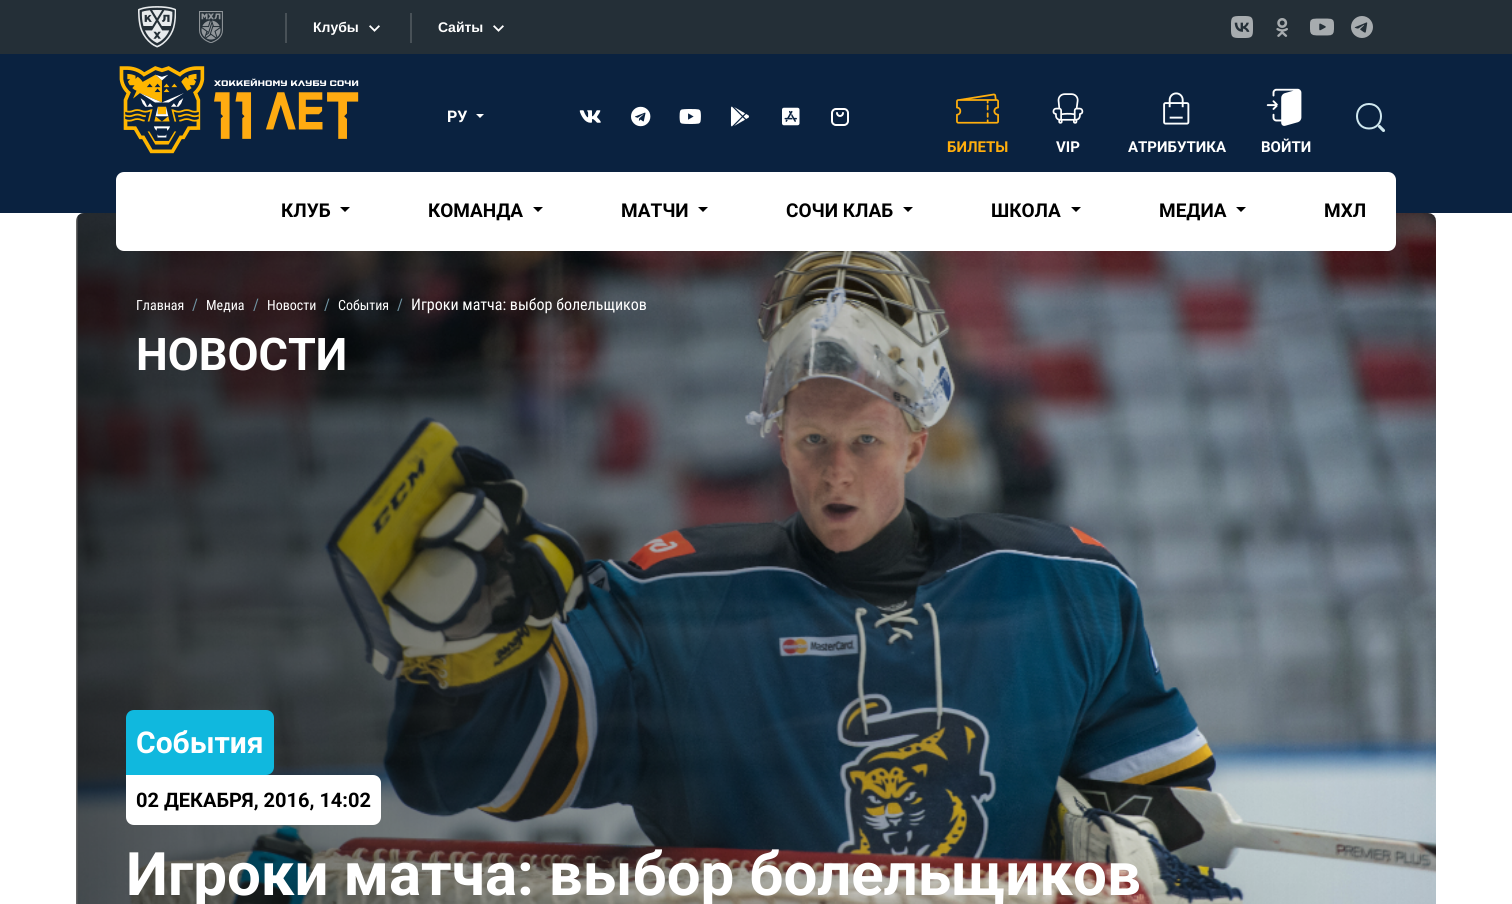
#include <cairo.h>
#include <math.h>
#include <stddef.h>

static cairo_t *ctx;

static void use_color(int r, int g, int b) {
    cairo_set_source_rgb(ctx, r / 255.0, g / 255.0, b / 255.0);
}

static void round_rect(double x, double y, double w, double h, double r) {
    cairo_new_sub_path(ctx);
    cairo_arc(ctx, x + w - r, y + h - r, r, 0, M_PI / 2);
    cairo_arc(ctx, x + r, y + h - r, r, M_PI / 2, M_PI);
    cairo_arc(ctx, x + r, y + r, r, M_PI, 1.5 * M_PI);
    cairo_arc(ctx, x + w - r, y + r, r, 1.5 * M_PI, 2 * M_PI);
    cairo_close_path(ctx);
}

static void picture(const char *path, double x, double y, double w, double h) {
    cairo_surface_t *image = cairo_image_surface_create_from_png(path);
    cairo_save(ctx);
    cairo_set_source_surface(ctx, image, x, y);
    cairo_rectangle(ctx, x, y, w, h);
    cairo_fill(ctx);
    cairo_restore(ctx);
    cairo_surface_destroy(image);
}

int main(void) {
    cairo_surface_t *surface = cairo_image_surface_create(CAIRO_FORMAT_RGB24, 1512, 904);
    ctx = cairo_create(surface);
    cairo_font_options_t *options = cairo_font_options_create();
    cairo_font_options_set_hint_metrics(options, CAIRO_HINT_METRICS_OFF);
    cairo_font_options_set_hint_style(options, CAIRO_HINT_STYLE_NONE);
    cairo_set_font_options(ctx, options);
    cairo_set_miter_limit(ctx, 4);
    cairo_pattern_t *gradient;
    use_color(255, 255, 255);
    cairo_paint(ctx);
    use_color(36, 47, 55);
    cairo_rectangle(ctx, 0, 0, 1512, 54);
    cairo_fill(ctx);
    picture("img1.png", 138, 6, 38, 42);
    picture("img2.png", 199, 11, 24, 32);
    use_color(72, 81, 87);
    cairo_rectangle(ctx, 285, 13, 2, 30);
    cairo_fill(ctx);
    cairo_select_font_face(ctx, "Liberation Sans", CAIRO_FONT_SLANT_NORMAL, CAIRO_FONT_WEIGHT_BOLD);
    cairo_set_font_size(ctx, 14);
    use_color(255, 255, 255);
    cairo_move_to(ctx, 313, 32);
    cairo_show_text(ctx, "Клубы");
    picture("img3.png", 369, 25, 11, 7);
    use_color(72, 81, 87);
    cairo_rectangle(ctx, 410, 13, 2, 30);
    cairo_fill(ctx);
    use_color(255, 255, 255);
    cairo_move_to(ctx, 438, 32);
    cairo_show_text(ctx, "Сайты");
    picture("img3.png", 493, 25, 11, 7);
    picture("img4.png", 1231, 16, 22, 22);
    picture("img5.png", 1276, 18, 12, 19);
    picture("img6.png", 1310, 18, 24, 18);
    picture("img7.png", 1351, 16, 22, 22);
    use_color(10, 34, 64);
    cairo_rectangle(ctx, 0, 54, 1512, 159);
    cairo_fill(ctx);
    picture("img8.png", 119, 66, 240, 88);
    cairo_select_font_face(ctx, "Roboto", CAIRO_FONT_SLANT_NORMAL, CAIRO_FONT_WEIGHT_BOLD);
    cairo_set_font_size(ctx, 16);
    use_color(255, 255, 255);
    cairo_move_to(ctx, 447, 122);
    cairo_show_text(ctx, "РУ");
    cairo_new_path(ctx);
    cairo_move_to(ctx, 476, 114);
    cairo_line_to(ctx, 484, 114);
    cairo_line_to(ctx, 480, 118);
    cairo_close_path(ctx);
    cairo_fill(ctx);
    picture("img9.png", 579, 110, 22, 13);
    picture("img10.png", 631, 106, 20, 21);
    picture("img11.png", 679, 109, 22, 15);
    picture("img12.png", 730, 106, 19, 21);
    picture("img13.png", 782, 107, 18, 19);
    picture("img14.png", 831, 108, 18, 18);
    cairo_new_path(ctx);
    cairo_move_to(ctx, 1369, 128.5);
    cairo_curve_to(ctx, 1385, 128.5, 1385, 104, 1369, 104);
    cairo_curve_to(ctx, 1353, 104, 1353, 128.5, 1369, 128.5);
    cairo_close_path(ctx);
    use_color(208, 232, 239);
    cairo_set_line_cap(ctx, CAIRO_LINE_CAP_ROUND);
    cairo_set_line_join(ctx, CAIRO_LINE_JOIN_ROUND);
    cairo_stroke(ctx);
    cairo_new_path(ctx);
    cairo_move_to(ctx, 1379.5, 126.5);
    cairo_line_to(ctx, 1383.5, 130.5);
    cairo_set_line_width(ctx, 3.1);
    cairo_stroke(ctx);
    picture("img15.png", 956, 93, 43, 31);
    cairo_set_font_size(ctx, 15);
    use_color(255, 174, 13);
    cairo_move_to(ctx, 947, 152);
    cairo_show_text(ctx, "БИЛЕТЫ");
    picture("img16.png", 1052, 93, 32, 31);
    use_color(255, 255, 255);
    cairo_move_to(ctx, 1056, 152);
    cairo_show_text(ctx, "VIP");
    picture("img17.png", 1163, 92, 27, 33);
    cairo_move_to(ctx, 1128, 152);
    cairo_show_text(ctx, "АТРИБУТИКА");
    picture("img18.png", 1266, 88, 36, 38);
    cairo_move_to(ctx, 1261, 152);
    cairo_show_text(ctx, "ВОЙТИ");
    picture("img19.png", 77, 213, 1359, 691);
    gradient = cairo_pattern_create_linear(76, 588, 1436, 588);
    cairo_pattern_add_color_stop_rgba(gradient, 0, 0, 0, 0, 0.6);
    cairo_pattern_add_color_stop_rgba(gradient, 1, 0, 0, 0, 0);
    cairo_set_source(ctx, gradient);
    cairo_pattern_destroy(gradient);
    round_rect(76, 213, 1360, 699, 8);
    cairo_fill(ctx);
    use_color(255, 255, 255);
    round_rect(116, 172, 1280, 79, 8);
    cairo_fill(ctx);
    cairo_set_font_size(ctx, 19);
    use_color(0, 0, 0);
    cairo_move_to(ctx, 281, 217);
    cairo_show_text(ctx, "КЛУБ");
    cairo_new_path(ctx);
    cairo_move_to(ctx, 340, 207);
    cairo_line_to(ctx, 350, 207);
    cairo_line_to(ctx, 345, 212);
    cairo_close_path(ctx);
    cairo_fill(ctx);
    cairo_move_to(ctx, 428, 217);
    cairo_show_text(ctx, "КОМАНДА");
    cairo_new_path(ctx);
    cairo_move_to(ctx, 533, 207);
    cairo_line_to(ctx, 543, 207);
    cairo_line_to(ctx, 538, 212);
    cairo_close_path(ctx);
    cairo_fill(ctx);
    cairo_move_to(ctx, 621, 217);
    cairo_show_text(ctx, "МАТЧИ");
    cairo_new_path(ctx);
    cairo_move_to(ctx, 698, 207);
    cairo_line_to(ctx, 708, 207);
    cairo_line_to(ctx, 703, 212);
    cairo_close_path(ctx);
    cairo_fill(ctx);
    cairo_move_to(ctx, 786, 217);
    cairo_show_text(ctx, "СОЧИ КЛАБ");
    cairo_new_path(ctx);
    cairo_move_to(ctx, 903, 207);
    cairo_line_to(ctx, 913, 207);
    cairo_line_to(ctx, 908, 212);
    cairo_close_path(ctx);
    cairo_fill(ctx);
    cairo_move_to(ctx, 991, 217);
    cairo_show_text(ctx, "ШКОЛА");
    cairo_new_path(ctx);
    cairo_move_to(ctx, 1071, 207);
    cairo_line_to(ctx, 1081, 207);
    cairo_line_to(ctx, 1076, 212);
    cairo_close_path(ctx);
    cairo_fill(ctx);
    cairo_move_to(ctx, 1159, 217);
    cairo_show_text(ctx, "МЕДИА");
    cairo_new_path(ctx);
    cairo_move_to(ctx, 1236, 207);
    cairo_line_to(ctx, 1246, 207);
    cairo_line_to(ctx, 1241, 212);
    cairo_close_path(ctx);
    cairo_fill(ctx);
    cairo_move_to(ctx, 1324, 217);
    cairo_show_text(ctx, "МХЛ");
    cairo_select_font_face(ctx, "Roboto Condensed", CAIRO_FONT_SLANT_NORMAL, CAIRO_FONT_WEIGHT_NORMAL);
    cairo_set_font_size(ctx, 14);
    use_color(255, 255, 255);
    cairo_move_to(ctx, 136, 310);
    cairo_show_text(ctx, "Главная");
    cairo_set_font_size(ctx, 16);
    use_color(112, 147, 161);
    cairo_move_to(ctx, 192, 310);
    cairo_show_text(ctx, "/");
    cairo_set_font_size(ctx, 14);
    use_color(255, 255, 255);
    cairo_move_to(ctx, 206, 310);
    cairo_show_text(ctx, "Медиа");
    cairo_set_font_size(ctx, 16);
    use_color(112, 147, 161);
    cairo_move_to(ctx, 253, 310);
    cairo_show_text(ctx, "/");
    cairo_set_font_size(ctx, 14);
    use_color(255, 255, 255);
    cairo_move_to(ctx, 267, 310);
    cairo_show_text(ctx, "Новости");
    cairo_set_font_size(ctx, 16);
    use_color(112, 147, 161);
    cairo_move_to(ctx, 324, 310);
    cairo_show_text(ctx, "/");
    cairo_set_font_size(ctx, 14);
    use_color(255, 255, 255);
    cairo_move_to(ctx, 338, 310);
    cairo_show_text(ctx, "События");
    cairo_set_font_size(ctx, 16);
    use_color(112, 147, 161);
    cairo_move_to(ctx, 397, 310);
    cairo_show_text(ctx, "/");
    use_color(255, 255, 255);
    cairo_move_to(ctx, 411, 310);
    cairo_show_text(ctx, "Игроки матча: выбор болельщиков");
    cairo_select_font_face(ctx, "Roboto", CAIRO_FONT_SLANT_NORMAL, CAIRO_FONT_WEIGHT_BOLD);
    cairo_set_font_size(ctx, 45);
    cairo_move_to(ctx, 136, 370);
    cairo_show_text(ctx, "НОВОСТИ");
    use_color(16, 184, 222);
    cairo_new_path(ctx);
    cairo_move_to(ctx, 134, 710);
    cairo_line_to(ctx, 266, 710);
    cairo_curve_to(ctx, 270.5, 710, 274, 713.5, 274, 718);
    cairo_line_to(ctx, 274, 767);
    cairo_curve_to(ctx, 274, 771.5, 270.5, 775, 266, 775);
    cairo_line_to(ctx, 126, 775);
    cairo_line_to(ctx, 126, 718);
    cairo_curve_to(ctx, 126, 713.5, 129.5, 710, 134, 710);
    cairo_close_path(ctx);
    cairo_fill(ctx);
    cairo_set_font_size(ctx, 30);
    use_color(255, 255, 255);
    cairo_move_to(ctx, 136, 753);
    cairo_show_text(ctx, "События");
    cairo_new_path(ctx);
    cairo_move_to(ctx, 126, 775);
    cairo_line_to(ctx, 373, 775);
    cairo_curve_to(ctx, 377.5, 775, 381, 778.5, 381, 783);
    cairo_line_to(ctx, 381, 817);
    cairo_curve_to(ctx, 381, 821.5, 377.5, 825, 373, 825);
    cairo_line_to(ctx, 134, 825);
    cairo_curve_to(ctx, 129.5, 825, 126, 821.5, 126, 817);
    cairo_close_path(ctx);
    cairo_fill(ctx);
    cairo_set_font_size(ctx, 20);
    use_color(0, 0, 0);
    cairo_move_to(ctx, 136, 807);
    cairo_show_text(ctx, "02 ДЕКАБРЯ, 2016, 14:02");
    cairo_set_font_size(ctx, 60);
    use_color(255, 255, 255);
    cairo_move_to(ctx, 126, 895);
    cairo_show_text(ctx, "Игроки матча: выбор болельщиков");
    cairo_surface_write_to_png(surface, "result.png");
    cairo_font_options_destroy(options);
    cairo_destroy(ctx);
    cairo_surface_destroy(surface);
    return 0;
}
